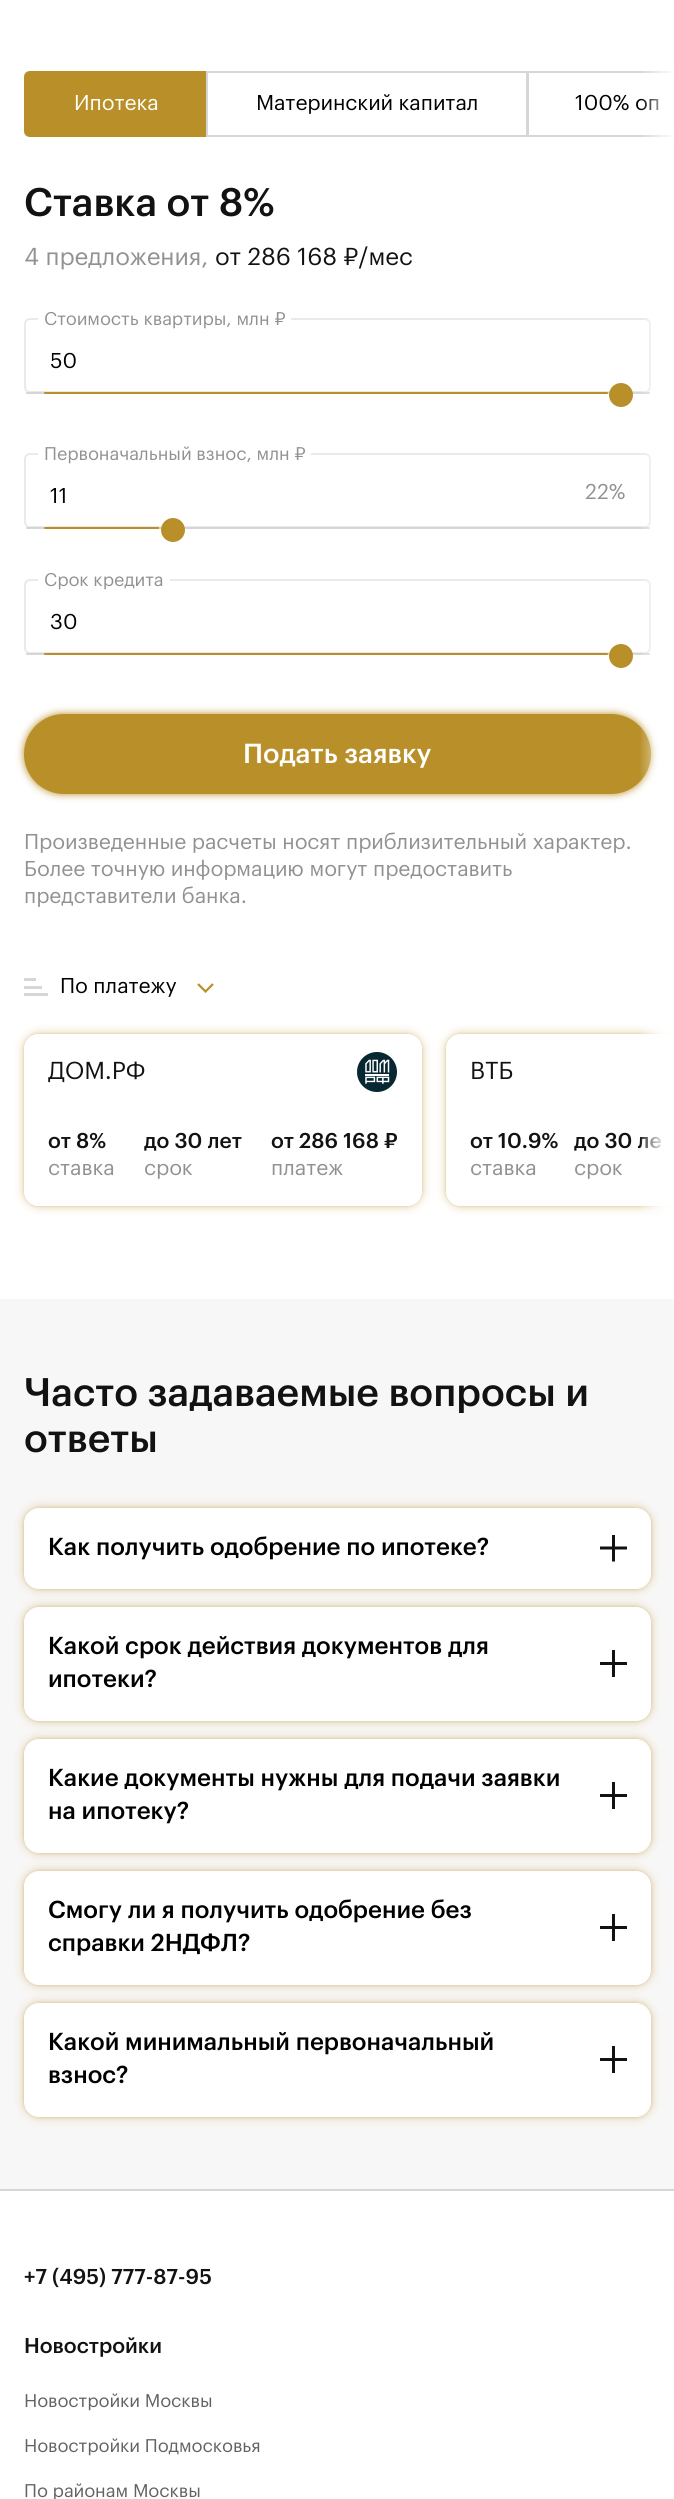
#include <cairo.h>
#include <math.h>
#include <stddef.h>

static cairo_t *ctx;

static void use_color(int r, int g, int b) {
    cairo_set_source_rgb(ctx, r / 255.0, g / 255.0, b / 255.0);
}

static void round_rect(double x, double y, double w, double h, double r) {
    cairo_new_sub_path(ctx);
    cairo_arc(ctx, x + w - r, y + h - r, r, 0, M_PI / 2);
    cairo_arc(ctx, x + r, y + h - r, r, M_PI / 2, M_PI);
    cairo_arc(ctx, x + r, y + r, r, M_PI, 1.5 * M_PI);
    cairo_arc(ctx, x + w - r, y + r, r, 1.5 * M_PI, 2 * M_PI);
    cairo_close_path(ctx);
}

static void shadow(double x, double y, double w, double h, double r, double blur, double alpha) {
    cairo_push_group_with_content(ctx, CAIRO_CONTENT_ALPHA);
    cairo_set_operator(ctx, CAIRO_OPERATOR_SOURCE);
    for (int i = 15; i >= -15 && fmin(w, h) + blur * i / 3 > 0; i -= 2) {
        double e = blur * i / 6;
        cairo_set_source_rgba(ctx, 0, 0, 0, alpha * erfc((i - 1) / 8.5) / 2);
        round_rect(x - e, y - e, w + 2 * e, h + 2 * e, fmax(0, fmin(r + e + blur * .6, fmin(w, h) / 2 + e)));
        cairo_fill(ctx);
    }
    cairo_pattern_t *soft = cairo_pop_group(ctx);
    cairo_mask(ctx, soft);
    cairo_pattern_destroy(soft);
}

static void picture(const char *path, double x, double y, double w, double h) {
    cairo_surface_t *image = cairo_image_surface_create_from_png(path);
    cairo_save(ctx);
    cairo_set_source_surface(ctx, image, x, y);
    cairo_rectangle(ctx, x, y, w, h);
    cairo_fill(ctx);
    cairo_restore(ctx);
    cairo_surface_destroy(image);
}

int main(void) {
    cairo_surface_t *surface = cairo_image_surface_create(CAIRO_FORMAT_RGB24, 674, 2499);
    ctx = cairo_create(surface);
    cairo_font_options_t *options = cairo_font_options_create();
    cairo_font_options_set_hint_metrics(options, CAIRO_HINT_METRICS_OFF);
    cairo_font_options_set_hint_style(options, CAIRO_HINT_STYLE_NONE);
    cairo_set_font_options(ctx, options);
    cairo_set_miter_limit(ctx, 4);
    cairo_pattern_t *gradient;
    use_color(255, 255, 255);
    cairo_paint(ctx);
    use_color(184, 143, 40);
    cairo_new_path(ctx);
    cairo_move_to(ctx, 30, 72);
    cairo_line_to(ctx, 206, 72);
    cairo_line_to(ctx, 206, 136);
    cairo_line_to(ctx, 30, 136);
    cairo_curve_to(ctx, 27, 136, 25, 134, 25, 131);
    cairo_line_to(ctx, 25, 77);
    cairo_curve_to(ctx, 25, 74, 27, 72, 30, 72);
    cairo_close_path(ctx);
    cairo_fill_preserve(ctx);
    cairo_stroke(ctx);
    cairo_rectangle(ctx, 207, 72, 320, 64);
    use_color(214, 214, 214);
    cairo_stroke(ctx);
    cairo_rectangle(ctx, 528, 72, 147, 64);
    cairo_stroke(ctx);
    cairo_select_font_face(ctx, "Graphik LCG", CAIRO_FONT_SLANT_NORMAL, CAIRO_FONT_WEIGHT_NORMAL);
    cairo_set_font_size(ctx, 21);
    use_color(0, 0, 0);
    cairo_move_to(ctx, 575, 110);
    cairo_show_text(ctx, "100% оп");
    round_rect(25, 319, 625, 73, 5);
    use_color(234, 234, 234);
    cairo_stroke(ctx);
    use_color(214, 214, 214);
    round_rect(26, 392, 624, 2, 1);
    cairo_fill(ctx);
    round_rect(25, 454, 625, 73, 5);
    use_color(234, 234, 234);
    cairo_stroke(ctx);
    use_color(214, 214, 214);
    round_rect(26, 527, 624, 2, 1);
    cairo_fill(ctx);
    round_rect(25, 580, 625, 73, 5);
    use_color(234, 234, 234);
    cairo_stroke(ctx);
    use_color(214, 214, 214);
    round_rect(26, 653, 624, 2, 1);
    cairo_fill(ctx);
    use_color(184, 143, 40);
    shadow(24, 714, 627, 80, 40, 4, 1);
    use_color(184, 143, 40);
    round_rect(24, 714, 627, 80, 40);
    cairo_fill(ctx);
    cairo_save(ctx);
    cairo_set_fill_rule(ctx, CAIRO_FILL_RULE_EVEN_ODD);
    cairo_new_path(ctx);
    cairo_move_to(ctx, 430, 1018);
    cairo_line_to(ctx, 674, 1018);
    cairo_line_to(ctx, 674, 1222);
    cairo_line_to(ctx, 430, 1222);
    cairo_close_path(ctx);
    cairo_move_to(ctx, 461, 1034);
    cairo_line_to(ctx, 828, 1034);
    cairo_curve_to(ctx, 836.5, 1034, 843, 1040.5, 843, 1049);
    cairo_line_to(ctx, 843, 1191);
    cairo_curve_to(ctx, 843, 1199.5, 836.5, 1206, 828, 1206);
    cairo_line_to(ctx, 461, 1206);
    cairo_curve_to(ctx, 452.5, 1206, 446, 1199.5, 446, 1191);
    cairo_line_to(ctx, 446, 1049);
    cairo_curve_to(ctx, 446, 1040.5, 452.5, 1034, 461, 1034);
    cairo_close_path(ctx);
    cairo_clip(ctx);
    use_color(184, 143, 40);
    shadow(446, 1034, 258, 172, 15, 5, 0.45);
    cairo_restore(ctx);
    cairo_save(ctx);
    cairo_set_fill_rule(ctx, CAIRO_FILL_RULE_EVEN_ODD);
    cairo_new_path(ctx);
    cairo_move_to(ctx, 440, 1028);
    cairo_line_to(ctx, 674, 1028);
    cairo_line_to(ctx, 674, 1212);
    cairo_line_to(ctx, 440, 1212);
    cairo_close_path(ctx);
    cairo_move_to(ctx, 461, 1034);
    cairo_line_to(ctx, 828, 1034);
    cairo_curve_to(ctx, 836.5, 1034, 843, 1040.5, 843, 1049);
    cairo_line_to(ctx, 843, 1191);
    cairo_curve_to(ctx, 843, 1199.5, 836.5, 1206, 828, 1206);
    cairo_line_to(ctx, 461, 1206);
    cairo_curve_to(ctx, 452.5, 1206, 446, 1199.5, 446, 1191);
    cairo_line_to(ctx, 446, 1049);
    cairo_curve_to(ctx, 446, 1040.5, 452.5, 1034, 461, 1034);
    cairo_close_path(ctx);
    cairo_clip(ctx);
    use_color(184, 143, 40);
    shadow(446, 1034, 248, 172, 15, 1.5, 0.3);
    cairo_restore(ctx);
    cairo_select_font_face(ctx, "Graphik LCG Medium", CAIRO_FONT_SLANT_NORMAL, CAIRO_FONT_WEIGHT_NORMAL);
    use_color(18, 18, 18);
    cairo_move_to(ctx, 574, 1148);
    cairo_show_text(ctx, "до 30 ле");
    gradient = cairo_pattern_create_linear(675, 1120, 615, 1120);
    cairo_pattern_add_color_stop_rgba(gradient, 0, 1, 1, 1, 1);
    cairo_pattern_add_color_stop_rgba(gradient, 0.59, 1, 1, 1, 0);
    cairo_set_source(ctx, gradient);
    cairo_pattern_destroy(gradient);
    cairo_rectangle(ctx, 640, 1024, 34, 192);
    cairo_fill(ctx);
    gradient = cairo_pattern_create_linear(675, 647, 615, 647);
    cairo_pattern_add_color_stop_rgba(gradient, 0, 1, 1, 1, 1);
    cairo_pattern_add_color_stop_rgba(gradient, 0.59, 1, 1, 1, 0);
    cairo_set_source(ctx, gradient);
    cairo_pattern_destroy(gradient);
    cairo_rectangle(ctx, 640, 71, 34, 1141);
    cairo_fill(ctx);
    cairo_select_font_face(ctx, "Graphik LCG", CAIRO_FONT_SLANT_NORMAL, CAIRO_FONT_WEIGHT_NORMAL);
    use_color(255, 255, 255);
    cairo_move_to(ctx, 74, 110);
    cairo_show_text(ctx, "Ипотека");
    use_color(0, 0, 0);
    cairo_move_to(ctx, 256, 110);
    cairo_show_text(ctx, "Материнский капитал");
    cairo_select_font_face(ctx, "Graphik LCG Medium", CAIRO_FONT_SLANT_NORMAL, CAIRO_FONT_WEIGHT_NORMAL);
    cairo_set_font_size(ctx, 39);
    use_color(18, 18, 18);
    cairo_move_to(ctx, 24, 216);
    cairo_show_text(ctx, "Ставка от 8%");
    cairo_select_font_face(ctx, "Graphik LCG", CAIRO_FONT_SLANT_NORMAL, CAIRO_FONT_WEIGHT_NORMAL);
    cairo_set_font_size(ctx, 24);
    use_color(145, 145, 145);
    cairo_move_to(ctx, 24, 265);
    cairo_show_text(ctx, "4 предложения,");
    use_color(18, 18, 18);
    cairo_move_to(ctx, 215, 265);
    cairo_show_text(ctx, "от 286 168 ₽/мес");
    use_color(255, 255, 255);
    cairo_rectangle(ctx, 38, 318, 253, 2);
    cairo_fill(ctx);
    cairo_set_font_size(ctx, 18);
    use_color(145, 145, 145);
    cairo_move_to(ctx, 44, 325);
    cairo_show_text(ctx, "Стоимость квартиры, млн ₽");
    cairo_set_font_size(ctx, 21);
    use_color(0, 0, 0);
    cairo_move_to(ctx, 50, 368);
    cairo_show_text(ctx, "50");
    use_color(184, 143, 40);
    round_rect(44, 392, 564, 2, 1);
    cairo_fill(ctx);
    cairo_arc(ctx, 621, 395, 12, 0, 2 * M_PI);
    cairo_fill(ctx);
    use_color(255, 255, 255);
    cairo_rectangle(ctx, 38, 453, 273, 2);
    cairo_fill(ctx);
    cairo_set_font_size(ctx, 18);
    use_color(145, 145, 145);
    cairo_move_to(ctx, 44, 460);
    cairo_show_text(ctx, "Первоначальный взнос, млн ₽");
    cairo_set_font_size(ctx, 21);
    use_color(0, 0, 0);
    cairo_move_to(ctx, 50, 503);
    cairo_show_text(ctx, "11");
    use_color(145, 145, 145);
    cairo_move_to(ctx, 585, 499);
    cairo_show_text(ctx, "22%");
    use_color(184, 143, 40);
    cairo_new_path(ctx);
    cairo_move_to(ctx, 45, 527);
    cairo_line_to(ctx, 159, 527);
    cairo_line_to(ctx, 159, 529);
    cairo_line_to(ctx, 45, 529);
    cairo_curve_to(ctx, 44.5, 529, 44, 528.5, 44, 528);
    cairo_curve_to(ctx, 44, 527.5, 44.5, 527, 45, 527);
    cairo_close_path(ctx);
    cairo_fill(ctx);
    cairo_arc(ctx, 173, 530, 12, 0, 2 * M_PI);
    cairo_fill(ctx);
    use_color(255, 255, 255);
    cairo_rectangle(ctx, 38, 579, 132, 2);
    cairo_fill(ctx);
    cairo_set_font_size(ctx, 18);
    use_color(145, 145, 145);
    cairo_move_to(ctx, 44, 586);
    cairo_show_text(ctx, "Срок кредита");
    cairo_set_font_size(ctx, 21);
    use_color(0, 0, 0);
    cairo_move_to(ctx, 50, 629);
    cairo_show_text(ctx, "30");
    use_color(184, 143, 40);
    round_rect(44, 653, 564, 2, 1);
    cairo_fill(ctx);
    cairo_arc(ctx, 621, 656, 12, 0, 2 * M_PI);
    cairo_fill(ctx);
    cairo_select_font_face(ctx, "Graphik LCG Medium", CAIRO_FONT_SLANT_NORMAL, CAIRO_FONT_WEIGHT_NORMAL);
    cairo_set_font_size(ctx, 27);
    use_color(255, 255, 255);
    cairo_move_to(ctx, 243, 763);
    cairo_show_text(ctx, "Подать заявку");
    cairo_select_font_face(ctx, "Graphik LCG", CAIRO_FONT_SLANT_NORMAL, CAIRO_FONT_WEIGHT_NORMAL);
    cairo_set_font_size(ctx, 21);
    use_color(145, 145, 145);
    cairo_move_to(ctx, 24, 849);
    cairo_show_text(ctx, "Произведенные расчеты носят приблизительный характер.");
    cairo_move_to(ctx, 24, 876);
    cairo_show_text(ctx, "Более точную информацию могут предоставить");
    cairo_move_to(ctx, 24, 903);
    cairo_show_text(ctx, "представители банка.");
    use_color(214, 214, 214);
    cairo_rectangle(ctx, 24, 978, 12, 3);
    cairo_fill(ctx);
    cairo_rectangle(ctx, 24, 986, 18, 3);
    cairo_fill(ctx);
    cairo_rectangle(ctx, 24, 993, 24, 3);
    cairo_fill(ctx);
    use_color(0, 0, 0);
    cairo_move_to(ctx, 60, 993);
    cairo_show_text(ctx, "По платежу");
    cairo_new_path(ctx);
    cairo_move_to(ctx, 198, 984);
    cairo_line_to(ctx, 205.5, 991.5);
    cairo_line_to(ctx, 213, 984);
    use_color(185, 144, 40);
    cairo_set_line_width(ctx, 2.2);
    cairo_stroke(ctx);
    cairo_save(ctx);
    cairo_set_fill_rule(ctx, CAIRO_FILL_RULE_EVEN_ODD);
    cairo_new_path(ctx);
    cairo_move_to(ctx, 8, 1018);
    cairo_line_to(ctx, 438, 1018);
    cairo_line_to(ctx, 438, 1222);
    cairo_line_to(ctx, 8, 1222);
    cairo_close_path(ctx);
    cairo_move_to(ctx, 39, 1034);
    cairo_line_to(ctx, 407, 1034);
    cairo_curve_to(ctx, 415.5, 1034, 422, 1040.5, 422, 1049);
    cairo_line_to(ctx, 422, 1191);
    cairo_curve_to(ctx, 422, 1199.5, 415.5, 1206, 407, 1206);
    cairo_line_to(ctx, 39, 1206);
    cairo_curve_to(ctx, 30.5, 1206, 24, 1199.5, 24, 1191);
    cairo_line_to(ctx, 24, 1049);
    cairo_curve_to(ctx, 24, 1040.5, 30.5, 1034, 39, 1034);
    cairo_close_path(ctx);
    cairo_clip(ctx);
    use_color(184, 143, 40);
    shadow(24, 1034, 398, 172, 15, 5, 0.45);
    cairo_restore(ctx);
    cairo_save(ctx);
    cairo_set_fill_rule(ctx, CAIRO_FILL_RULE_EVEN_ODD);
    cairo_new_path(ctx);
    cairo_move_to(ctx, 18, 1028);
    cairo_line_to(ctx, 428, 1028);
    cairo_line_to(ctx, 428, 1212);
    cairo_line_to(ctx, 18, 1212);
    cairo_close_path(ctx);
    cairo_move_to(ctx, 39, 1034);
    cairo_line_to(ctx, 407, 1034);
    cairo_curve_to(ctx, 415.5, 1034, 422, 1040.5, 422, 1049);
    cairo_line_to(ctx, 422, 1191);
    cairo_curve_to(ctx, 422, 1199.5, 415.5, 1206, 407, 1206);
    cairo_line_to(ctx, 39, 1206);
    cairo_curve_to(ctx, 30.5, 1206, 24, 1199.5, 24, 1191);
    cairo_line_to(ctx, 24, 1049);
    cairo_curve_to(ctx, 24, 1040.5, 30.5, 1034, 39, 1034);
    cairo_close_path(ctx);
    cairo_clip(ctx);
    use_color(184, 143, 40);
    shadow(24, 1034, 398, 172, 15, 1.5, 0.3);
    cairo_restore(ctx);
    cairo_set_font_size(ctx, 24);
    use_color(18, 18, 18);
    cairo_move_to(ctx, 48, 1079);
    cairo_show_text(ctx, "ДОМ.РФ");
    picture("img1.png", 357, 1052, 40, 40);
    cairo_select_font_face(ctx, "Graphik LCG Medium", CAIRO_FONT_SLANT_NORMAL, CAIRO_FONT_WEIGHT_NORMAL);
    cairo_set_font_size(ctx, 21);
    cairo_move_to(ctx, 48, 1148);
    cairo_show_text(ctx, "от 8%");
    cairo_select_font_face(ctx, "Graphik LCG", CAIRO_FONT_SLANT_NORMAL, CAIRO_FONT_WEIGHT_NORMAL);
    use_color(145, 145, 145);
    cairo_move_to(ctx, 48, 1175);
    cairo_show_text(ctx, "ставка");
    cairo_select_font_face(ctx, "Graphik LCG Medium", CAIRO_FONT_SLANT_NORMAL, CAIRO_FONT_WEIGHT_NORMAL);
    use_color(18, 18, 18);
    cairo_move_to(ctx, 144, 1148);
    cairo_show_text(ctx, "до 30 лет");
    cairo_select_font_face(ctx, "Graphik LCG", CAIRO_FONT_SLANT_NORMAL, CAIRO_FONT_WEIGHT_NORMAL);
    use_color(145, 145, 145);
    cairo_move_to(ctx, 144, 1175);
    cairo_show_text(ctx, "срок");
    cairo_select_font_face(ctx, "Graphik LCG Medium", CAIRO_FONT_SLANT_NORMAL, CAIRO_FONT_WEIGHT_NORMAL);
    use_color(18, 18, 18);
    cairo_move_to(ctx, 271, 1148);
    cairo_show_text(ctx, "от 286 168 ₽");
    cairo_select_font_face(ctx, "Graphik LCG", CAIRO_FONT_SLANT_NORMAL, CAIRO_FONT_WEIGHT_NORMAL);
    use_color(145, 145, 145);
    cairo_move_to(ctx, 271, 1175);
    cairo_show_text(ctx, "платеж");
    cairo_set_font_size(ctx, 24);
    use_color(18, 18, 18);
    cairo_move_to(ctx, 470, 1079);
    cairo_show_text(ctx, "ВТБ");
    cairo_select_font_face(ctx, "Graphik LCG Medium", CAIRO_FONT_SLANT_NORMAL, CAIRO_FONT_WEIGHT_NORMAL);
    cairo_set_font_size(ctx, 21);
    cairo_move_to(ctx, 470, 1148);
    cairo_show_text(ctx, "от 10.9%");
    cairo_select_font_face(ctx, "Graphik LCG", CAIRO_FONT_SLANT_NORMAL, CAIRO_FONT_WEIGHT_NORMAL);
    use_color(145, 145, 145);
    cairo_move_to(ctx, 470, 1175);
    cairo_show_text(ctx, "ставка");
    cairo_move_to(ctx, 574, 1175);
    cairo_show_text(ctx, "срок");
    use_color(248, 247, 247);
    cairo_rectangle(ctx, 0, 1299, 674, 890);
    cairo_fill(ctx);
    cairo_select_font_face(ctx, "Graphik LCG Medium", CAIRO_FONT_SLANT_NORMAL, CAIRO_FONT_WEIGHT_NORMAL);
    cairo_set_font_size(ctx, 39);
    use_color(18, 18, 18);
    cairo_move_to(ctx, 24, 1406);
    cairo_show_text(ctx, "Часто задаваемые вопросы и");
    cairo_move_to(ctx, 24, 1452);
    cairo_show_text(ctx, "ответы");
    use_color(184, 143, 40);
    shadow(24, 1508, 627, 81, 15, 5, 0.45);
    shadow(24, 1508, 627, 81, 15, 1.5, 0.3);
    use_color(255, 255, 255);
    round_rect(24, 1508, 627, 81, 15);
    cairo_fill(ctx);
    cairo_set_font_size(ctx, 24);
    use_color(0, 0, 0);
    cairo_move_to(ctx, 48, 1555);
    cairo_show_text(ctx, "Как получить одобрение по ипотеке?");
    cairo_save(ctx);
    cairo_rectangle(ctx, 600, 1535, 27, 27);
    cairo_clip(ctx);
    cairo_new_path(ctx);
    cairo_move_to(ctx, 613.5, 1534.5);
    cairo_line_to(ctx, 613.5, 1561.5);
    cairo_move_to(ctx, 627, 1548);
    cairo_line_to(ctx, 600, 1548);
    use_color(18, 18, 18);
    cairo_set_line_width(ctx, 3);
    cairo_stroke(ctx);
    cairo_restore(ctx);
    use_color(184, 143, 40);
    shadow(24, 1607, 627, 114, 15, 5, 0.45);
    shadow(24, 1607, 627, 114, 15, 1.5, 0.3);
    use_color(255, 255, 255);
    round_rect(24, 1607, 627, 114, 15);
    cairo_fill(ctx);
    use_color(0, 0, 0);
    cairo_move_to(ctx, 48, 1654);
    cairo_show_text(ctx, "Какой срок действия документов для");
    cairo_move_to(ctx, 48, 1687);
    cairo_show_text(ctx, "ипотеки?");
    cairo_new_path(ctx);
    cairo_move_to(ctx, 613.5, 1650);
    cairo_line_to(ctx, 613.5, 1677);
    cairo_move_to(ctx, 627, 1663.5);
    cairo_line_to(ctx, 600, 1663.5);
    use_color(18, 18, 18);
    cairo_set_line_width(ctx, 3);
    cairo_stroke(ctx);
    use_color(184, 143, 40);
    shadow(24, 1739, 627, 114, 15, 5, 0.45);
    shadow(24, 1739, 627, 114, 15, 1.5, 0.3);
    use_color(255, 255, 255);
    round_rect(24, 1739, 627, 114, 15);
    cairo_fill(ctx);
    use_color(0, 0, 0);
    cairo_move_to(ctx, 48, 1786);
    cairo_show_text(ctx, "Какие документы нужны для подачи заявки");
    cairo_move_to(ctx, 48, 1819);
    cairo_show_text(ctx, "на ипотеку?");
    cairo_new_path(ctx);
    cairo_move_to(ctx, 613.5, 1782);
    cairo_line_to(ctx, 613.5, 1809);
    cairo_move_to(ctx, 627, 1795.5);
    cairo_line_to(ctx, 600, 1795.5);
    use_color(18, 18, 18);
    cairo_stroke(ctx);
    use_color(184, 143, 40);
    shadow(24, 1871, 627, 114, 15, 5, 0.45);
    shadow(24, 1871, 627, 114, 15, 1.5, 0.3);
    use_color(255, 255, 255);
    round_rect(24, 1871, 627, 114, 15);
    cairo_fill(ctx);
    use_color(0, 0, 0);
    cairo_move_to(ctx, 48, 1918);
    cairo_show_text(ctx, "Смогу ли я получить одобрение без");
    cairo_move_to(ctx, 48, 1951);
    cairo_show_text(ctx, "справки 2НДФЛ?");
    cairo_new_path(ctx);
    cairo_move_to(ctx, 613.5, 1914);
    cairo_line_to(ctx, 613.5, 1941);
    cairo_move_to(ctx, 627, 1927.5);
    cairo_line_to(ctx, 600, 1927.5);
    use_color(18, 18, 18);
    cairo_stroke(ctx);
    use_color(184, 143, 40);
    shadow(24, 2003, 627, 114, 15, 5, 0.45);
    shadow(24, 2003, 627, 114, 15, 1.5, 0.3);
    use_color(255, 255, 255);
    round_rect(24, 2003, 627, 114, 15);
    cairo_fill(ctx);
    use_color(0, 0, 0);
    cairo_move_to(ctx, 48, 2050);
    cairo_show_text(ctx, "Какой минимальный первоначальный");
    cairo_move_to(ctx, 48, 2083);
    cairo_show_text(ctx, "взнос?");
    cairo_new_path(ctx);
    cairo_move_to(ctx, 613.5, 2046);
    cairo_line_to(ctx, 613.5, 2073);
    cairo_move_to(ctx, 627, 2059.5);
    cairo_line_to(ctx, 600, 2059.5);
    use_color(18, 18, 18);
    cairo_stroke(ctx);
    use_color(214, 214, 214);
    cairo_rectangle(ctx, 0, 2189, 674, 2);
    cairo_fill(ctx);
    cairo_set_font_size(ctx, 21);
    use_color(18, 18, 18);
    cairo_move_to(ctx, 24, 2284);
    cairo_show_text(ctx, "+7 (495) 777-87-95");
    cairo_move_to(ctx, 24, 2353);
    cairo_show_text(ctx, "Новостройки");
    cairo_select_font_face(ctx, "Graphik LCG", CAIRO_FONT_SLANT_NORMAL, CAIRO_FONT_WEIGHT_NORMAL);
    cairo_set_font_size(ctx, 18);
    use_color(101, 97, 97);
    cairo_move_to(ctx, 24, 2407);
    cairo_show_text(ctx, "Новостройки Москвы");
    cairo_move_to(ctx, 24, 2452);
    cairo_show_text(ctx, "Новостройки Подмосковья");
    cairo_move_to(ctx, 24, 2497);
    cairo_show_text(ctx, "По районам Москвы");
    cairo_surface_write_to_png(surface, "result.png");
    cairo_font_options_destroy(options);
    cairo_destroy(ctx);
    cairo_surface_destroy(surface);
    return 0;
}
